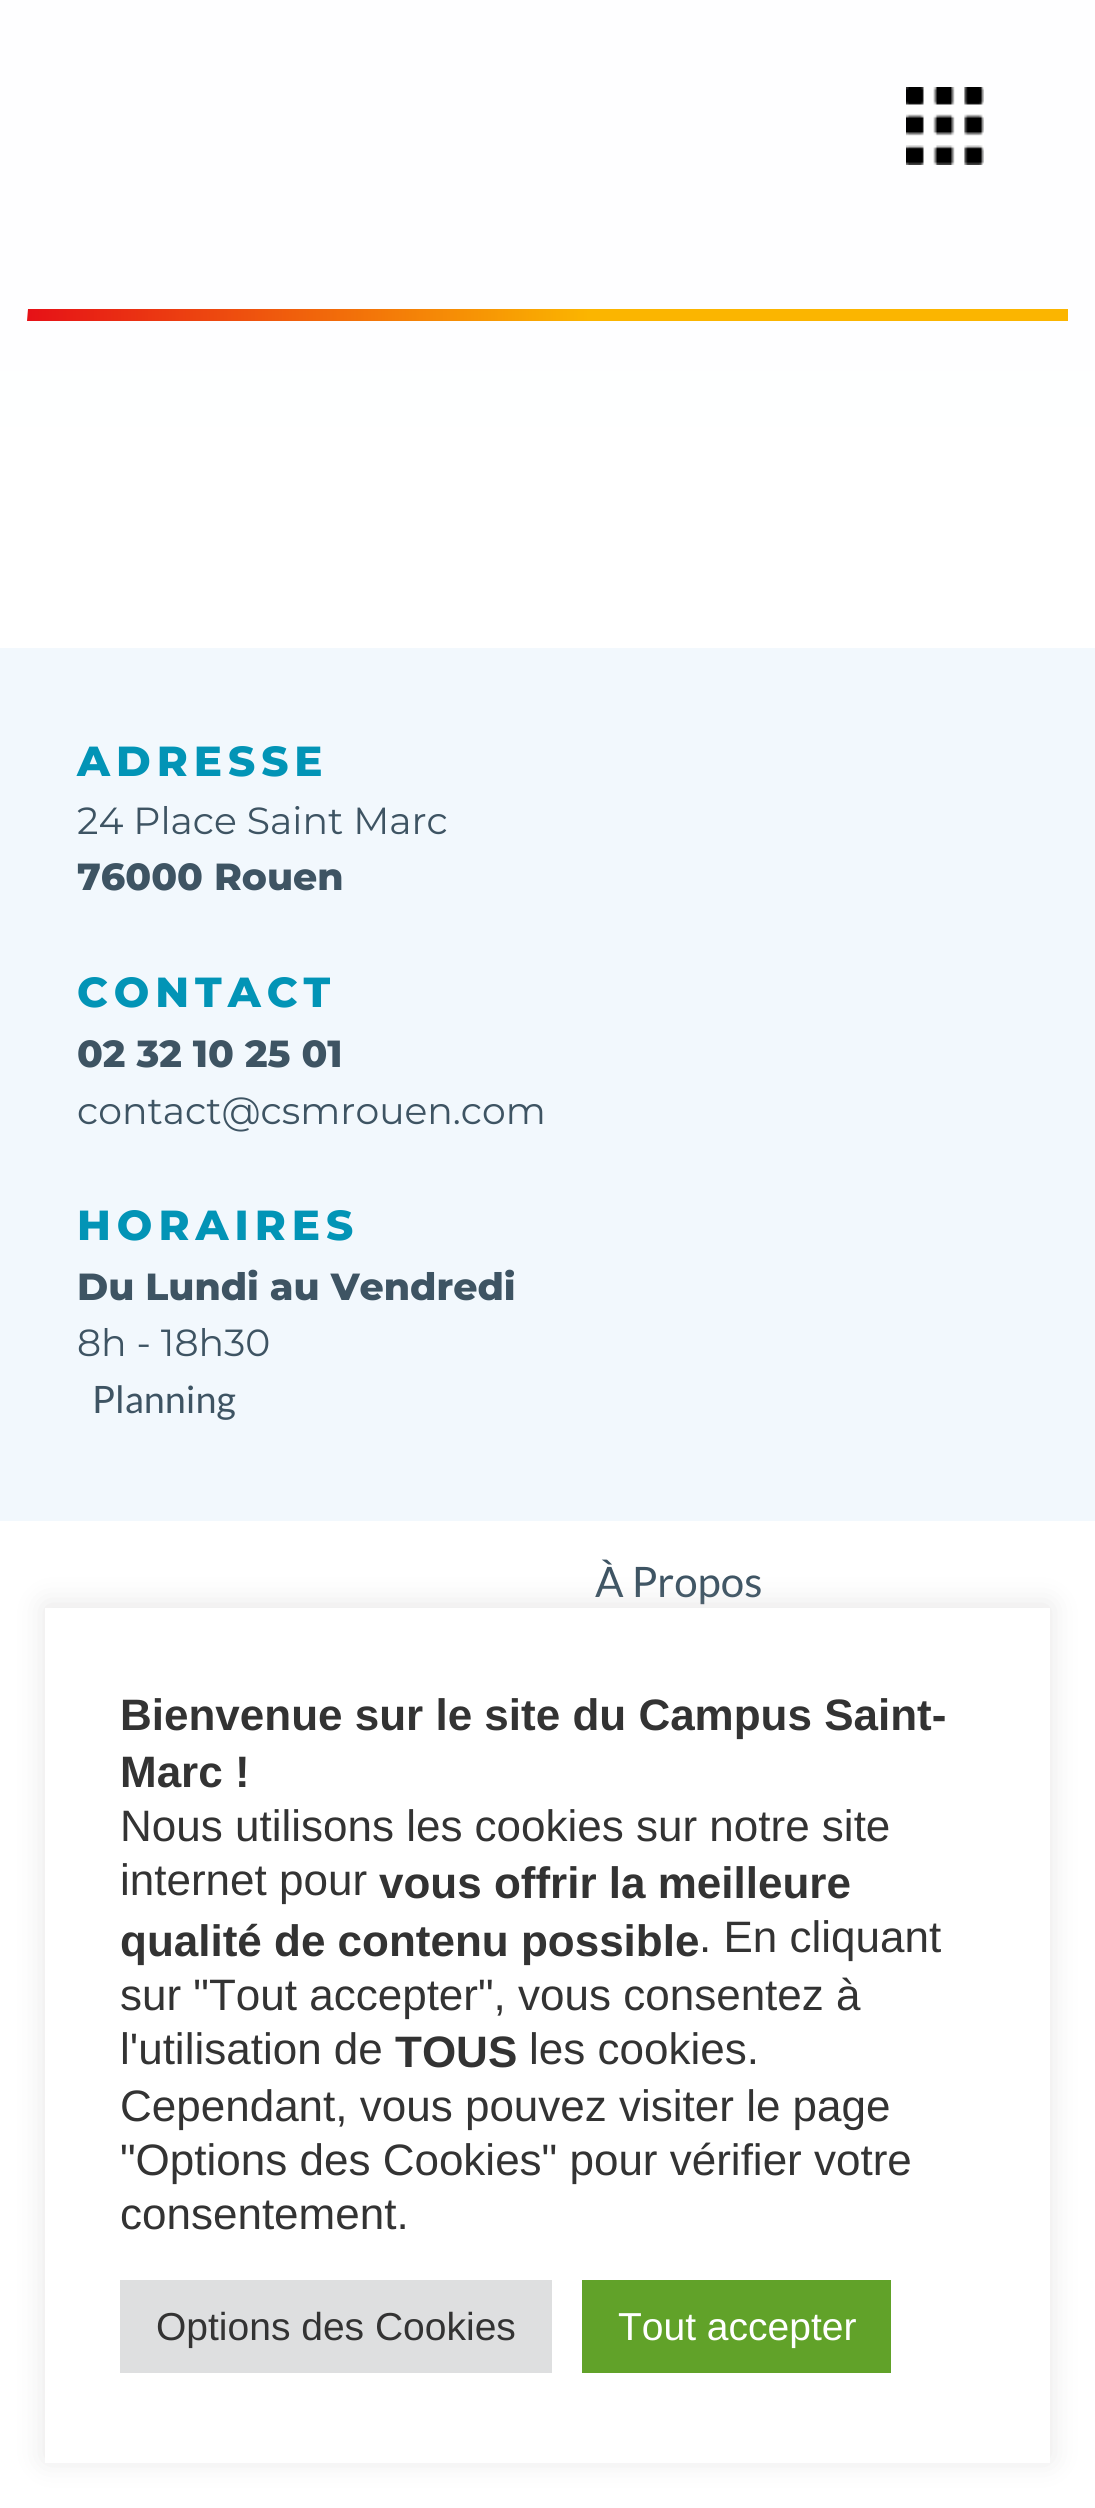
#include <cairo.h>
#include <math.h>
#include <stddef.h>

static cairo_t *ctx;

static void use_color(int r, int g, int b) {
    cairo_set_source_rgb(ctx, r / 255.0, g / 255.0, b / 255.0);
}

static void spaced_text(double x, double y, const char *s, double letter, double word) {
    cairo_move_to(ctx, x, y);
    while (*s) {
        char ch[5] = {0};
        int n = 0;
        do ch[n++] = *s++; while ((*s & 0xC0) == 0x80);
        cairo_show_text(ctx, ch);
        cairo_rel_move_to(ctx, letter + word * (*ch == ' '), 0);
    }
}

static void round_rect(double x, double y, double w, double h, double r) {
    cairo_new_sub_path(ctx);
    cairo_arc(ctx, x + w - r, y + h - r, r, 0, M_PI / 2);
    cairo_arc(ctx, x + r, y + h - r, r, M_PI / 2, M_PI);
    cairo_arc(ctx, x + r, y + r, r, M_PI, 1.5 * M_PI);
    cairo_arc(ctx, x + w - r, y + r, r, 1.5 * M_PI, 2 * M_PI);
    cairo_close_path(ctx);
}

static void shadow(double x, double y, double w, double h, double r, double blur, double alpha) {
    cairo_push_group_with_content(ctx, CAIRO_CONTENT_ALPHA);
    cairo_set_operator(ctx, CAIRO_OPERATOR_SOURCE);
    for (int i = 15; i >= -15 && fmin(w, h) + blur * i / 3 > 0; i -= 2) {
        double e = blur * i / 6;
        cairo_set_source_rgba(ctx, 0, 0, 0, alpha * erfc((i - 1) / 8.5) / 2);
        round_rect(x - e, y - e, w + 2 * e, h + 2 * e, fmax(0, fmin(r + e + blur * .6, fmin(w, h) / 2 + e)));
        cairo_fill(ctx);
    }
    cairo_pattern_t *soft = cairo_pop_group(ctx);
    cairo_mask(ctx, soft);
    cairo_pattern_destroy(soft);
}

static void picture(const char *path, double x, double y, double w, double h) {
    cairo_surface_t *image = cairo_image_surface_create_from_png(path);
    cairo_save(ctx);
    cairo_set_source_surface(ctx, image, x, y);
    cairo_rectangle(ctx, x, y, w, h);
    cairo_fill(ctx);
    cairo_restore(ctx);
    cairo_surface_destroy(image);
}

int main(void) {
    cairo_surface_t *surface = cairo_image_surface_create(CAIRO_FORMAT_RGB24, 1095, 2508);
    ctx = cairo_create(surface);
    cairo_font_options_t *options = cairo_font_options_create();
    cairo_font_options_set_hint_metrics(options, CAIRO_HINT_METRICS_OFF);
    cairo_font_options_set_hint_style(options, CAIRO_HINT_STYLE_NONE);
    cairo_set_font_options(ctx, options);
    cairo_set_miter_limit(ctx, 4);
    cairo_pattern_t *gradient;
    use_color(242, 248, 253);
    cairo_paint(ctx);
    gradient = cairo_pattern_create_linear(548, 648, 548, -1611);
    cairo_pattern_add_color_stop_rgba(gradient, 0, 1, 1, 1, 1);
    cairo_pattern_add_color_stop_rgba(gradient, 1, 0.98, 0.984, 1, 1);
    cairo_set_source(ctx, gradient);
    cairo_pattern_destroy(gradient);
    cairo_rectangle(ctx, 0, 0, 1095, 648);
    cairo_fill(ctx);
    picture("img1.png", 906, 87, 78, 78);
    gradient = cairo_pattern_create_linear(27, 315, 1068, 315);
    cairo_pattern_add_color_stop_rgba(gradient, 0, 0.902, 0.067, 0.09, 1);
    cairo_pattern_add_color_stop_rgba(gradient, 0.54, 0.984, 0.71, 0, 1);
    cairo_pattern_add_color_stop_rgba(gradient, 1, 0.984, 0.71, 0, 1);
    cairo_set_source(ctx, gradient);
    cairo_pattern_destroy(gradient);
    cairo_new_path(ctx);
    cairo_move_to(ctx, 27, 321);
    cairo_line_to(ctx, 28, 309);
    cairo_line_to(ctx, 1068, 309);
    cairo_line_to(ctx, 1068, 321);
    cairo_close_path(ctx);
    cairo_fill(ctx);
    cairo_select_font_face(ctx, "Montserrat ExtraBold", CAIRO_FONT_SLANT_NORMAL, CAIRO_FONT_WEIGHT_NORMAL);
    cairo_set_font_size(ctx, 42);
    use_color(2, 148, 182);
    spaced_text(77, 776, "ADRESSE", 6, 0);
    cairo_select_font_face(ctx, "Montserrat", CAIRO_FONT_SLANT_NORMAL, CAIRO_FONT_WEIGHT_NORMAL);
    cairo_set_font_size(ctx, 37.75);
    use_color(62, 84, 99);
    cairo_move_to(ctx, 77, 834);
    cairo_show_text(ctx, "24 Place Saint Marc");
    cairo_select_font_face(ctx, "Montserrat ExtraBold", CAIRO_FONT_SLANT_NORMAL, CAIRO_FONT_WEIGHT_NORMAL);
    cairo_move_to(ctx, 77, 890);
    cairo_show_text(ctx, "76000 Rouen");
    cairo_set_font_size(ctx, 42);
    use_color(2, 148, 182);
    spaced_text(77, 1007, "CONTACT", 6, 0);
    cairo_set_font_size(ctx, 37.75);
    use_color(62, 84, 99);
    cairo_move_to(ctx, 77, 1067);
    cairo_show_text(ctx, "02 32 10 25 01");
    cairo_select_font_face(ctx, "Montserrat", CAIRO_FONT_SLANT_NORMAL, CAIRO_FONT_WEIGHT_NORMAL);
    cairo_move_to(ctx, 77, 1124);
    cairo_show_text(ctx, "contact@csmrouen.com");
    cairo_select_font_face(ctx, "Montserrat ExtraBold", CAIRO_FONT_SLANT_NORMAL, CAIRO_FONT_WEIGHT_NORMAL);
    cairo_set_font_size(ctx, 42);
    use_color(2, 148, 182);
    spaced_text(77, 1240, "HORAIRES", 6, 0);
    cairo_set_font_size(ctx, 37.75);
    use_color(62, 84, 99);
    cairo_move_to(ctx, 77, 1300);
    cairo_show_text(ctx, "Du Lundi au Vendredi");
    cairo_select_font_face(ctx, "Montserrat", CAIRO_FONT_SLANT_NORMAL, CAIRO_FONT_WEIGHT_NORMAL);
    cairo_move_to(ctx, 77, 1356);
    cairo_show_text(ctx, "8h - 18h30");
    cairo_select_font_face(ctx, "Lato", CAIRO_FONT_SLANT_NORMAL, CAIRO_FONT_WEIGHT_NORMAL);
    cairo_move_to(ctx, 92, 1413);
    cairo_show_text(ctx, "Planning");
    use_color(255, 255, 255);
    cairo_rectangle(ctx, 0, 1521, 1095, 987);
    cairo_fill(ctx);
    cairo_set_font_size(ctx, 42);
    use_color(62, 84, 99);
    cairo_move_to(ctx, 595, 1597);
    cairo_show_text(ctx, "À Propos");
    use_color(172, 171, 171);
    shadow(45, 1605, 1005, 855, 0, 15, 0.3);
    use_color(255, 255, 255);
    cairo_rectangle(ctx, 45, 1608, 1005, 855);
    cairo_fill(ctx);
    cairo_select_font_face(ctx, "Liberation Sans", CAIRO_FONT_SLANT_NORMAL, CAIRO_FONT_WEIGHT_BOLD);
    cairo_set_font_size(ctx, 44);
    use_color(51, 51, 51);
    cairo_move_to(ctx, 120, 1730);
    cairo_show_text(ctx, "Bienvenue sur le site du Campus Saint-");
    cairo_move_to(ctx, 120, 1787);
    cairo_show_text(ctx, "Marc !");
    cairo_select_font_face(ctx, "Liberation Sans", CAIRO_FONT_SLANT_NORMAL, CAIRO_FONT_WEIGHT_NORMAL);
    cairo_move_to(ctx, 120, 1841);
    cairo_show_text(ctx, "Nous utilisons les cookies sur notre site");
    cairo_move_to(ctx, 120, 1895);
    cairo_show_text(ctx, "internet pour");
    cairo_select_font_face(ctx, "Liberation Sans", CAIRO_FONT_SLANT_NORMAL, CAIRO_FONT_WEIGHT_BOLD);
    cairo_move_to(ctx, 379, 1898);
    cairo_show_text(ctx, "vous offrir la meilleure");
    cairo_move_to(ctx, 120, 1956);
    cairo_show_text(ctx, "qualité de contenu possible");
    cairo_select_font_face(ctx, "Liberation Sans", CAIRO_FONT_SLANT_NORMAL, CAIRO_FONT_WEIGHT_NORMAL);
    cairo_move_to(ctx, 699, 1952);
    cairo_show_text(ctx, ". En cliquant");
    cairo_move_to(ctx, 120, 2010);
    cairo_show_text(ctx, "sur \"Tout accepter\", vous consentez à");
    cairo_move_to(ctx, 120, 2064);
    cairo_show_text(ctx, "l'utilisation de");
    cairo_select_font_face(ctx, "Liberation Sans", CAIRO_FONT_SLANT_NORMAL, CAIRO_FONT_WEIGHT_BOLD);
    cairo_move_to(ctx, 395, 2067);
    cairo_show_text(ctx, "TOUS");
    cairo_select_font_face(ctx, "Liberation Sans", CAIRO_FONT_SLANT_NORMAL, CAIRO_FONT_WEIGHT_NORMAL);
    cairo_move_to(ctx, 529, 2064);
    cairo_show_text(ctx, "les cookies.");
    cairo_move_to(ctx, 120, 2121);
    cairo_show_text(ctx, "Cependant, vous pouvez visiter le page");
    cairo_move_to(ctx, 120, 2175);
    cairo_show_text(ctx, "\"Options des Cookies\" pour vérifier votre");
    cairo_move_to(ctx, 120, 2229);
    cairo_show_text(ctx, "consentement.");
    use_color(222, 223, 224);
    cairo_rectangle(ctx, 120, 2280, 432, 93);
    cairo_fill(ctx);
    cairo_set_font_size(ctx, 39);
    use_color(51, 51, 51);
    cairo_move_to(ctx, 156, 2340);
    cairo_show_text(ctx, "Options des Cookies");
    use_color(97, 162, 41);
    cairo_rectangle(ctx, 582, 2280, 309, 93);
    cairo_fill(ctx);
    use_color(255, 255, 255);
    cairo_move_to(ctx, 618, 2340);
    cairo_show_text(ctx, "Tout accepter");
    cairo_surface_write_to_png(surface, "result.png");
    cairo_font_options_destroy(options);
    cairo_destroy(ctx);
    cairo_surface_destroy(surface);
    return 0;
}
